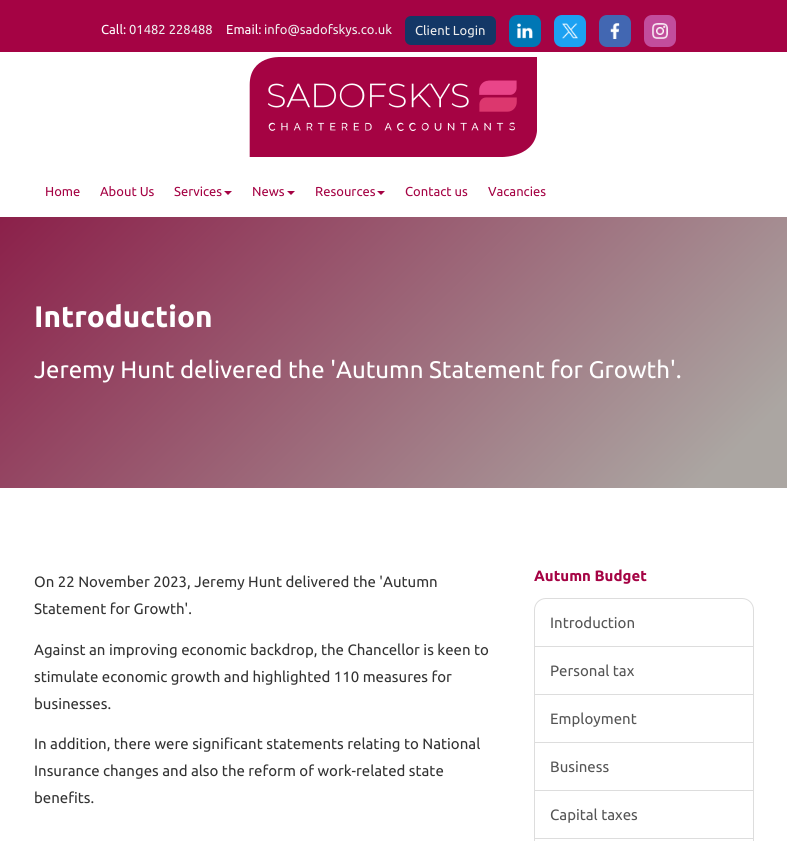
#include <cairo.h>
#include <math.h>
#include <stddef.h>

static cairo_t *ctx;

static void use_color(int r, int g, int b) {
    cairo_set_source_rgb(ctx, r / 255.0, g / 255.0, b / 255.0);
}

static void round_rect(double x, double y, double w, double h, double r) {
    cairo_new_sub_path(ctx);
    cairo_arc(ctx, x + w - r, y + h - r, r, 0, M_PI / 2);
    cairo_arc(ctx, x + r, y + h - r, r, M_PI / 2, M_PI);
    cairo_arc(ctx, x + r, y + r, r, M_PI, 1.5 * M_PI);
    cairo_arc(ctx, x + w - r, y + r, r, 1.5 * M_PI, 2 * M_PI);
    cairo_close_path(ctx);
}

static void picture(const char *path, double x, double y, double w, double h) {
    cairo_surface_t *image = cairo_image_surface_create_from_png(path);
    cairo_save(ctx);
    cairo_set_source_surface(ctx, image, x, y);
    cairo_rectangle(ctx, x, y, w, h);
    cairo_fill(ctx);
    cairo_restore(ctx);
    cairo_surface_destroy(image);
}

int main(void) {
    cairo_surface_t *surface = cairo_image_surface_create(CAIRO_FORMAT_RGB24, 787, 841);
    ctx = cairo_create(surface);
    cairo_font_options_t *options = cairo_font_options_create();
    cairo_font_options_set_hint_metrics(options, CAIRO_HINT_METRICS_OFF);
    cairo_font_options_set_hint_style(options, CAIRO_HINT_STYLE_NONE);
    cairo_set_font_options(ctx, options);
    cairo_set_miter_limit(ctx, 4);
    cairo_pattern_t *gradient;
    use_color(255, 255, 255);
    cairo_paint(ctx);
    use_color(165, 3, 68);
    cairo_rectangle(ctx, 0, 0, 787, 52);
    cairo_fill(ctx);
    cairo_select_font_face(ctx, "Ubuntu", CAIRO_FONT_SLANT_NORMAL, CAIRO_FONT_WEIGHT_NORMAL);
    cairo_set_font_size(ctx, 13);
    use_color(255, 255, 255);
    cairo_move_to(ctx, 101, 34);
    cairo_show_text(ctx, "Call:");
    use_color(238, 238, 238);
    cairo_move_to(ctx, 129, 34);
    cairo_show_text(ctx, "01482 228488");
    use_color(255, 255, 255);
    cairo_move_to(ctx, 226, 34);
    cairo_show_text(ctx, "Email:");
    use_color(238, 238, 238);
    cairo_move_to(ctx, 264, 34);
    cairo_show_text(ctx, "info@sadofskys.co.uk");
    use_color(19, 55, 102);
    round_rect(405, 16, 91, 29, 6);
    cairo_fill(ctx);
    use_color(238, 238, 238);
    cairo_move_to(ctx, 415, 35);
    cairo_show_text(ctx, "Client Login");
    use_color(0, 119, 181);
    round_rect(509, 15, 32, 32, 8);
    cairo_fill(ctx);
    picture("img1.png", 517, 23, 16, 16);
    use_color(28, 161, 242);
    round_rect(554, 15, 32, 32, 8);
    cairo_fill(ctx);
    picture("img2.png", 562, 23, 16, 16);
    use_color(66, 103, 178);
    round_rect(599, 15, 32, 32, 8);
    cairo_fill(ctx);
    picture("img3.png", 610, 23, 10, 16);
    use_color(194, 77, 156);
    round_rect(644, 15, 32, 32, 8);
    cairo_fill(ctx);
    picture("img4.png", 652, 23, 16, 16);
    picture("img5.png", 249, 57, 288, 100);
    use_color(165, 3, 68);
    cairo_move_to(ctx, 45, 196);
    cairo_show_text(ctx, "Home");
    cairo_move_to(ctx, 100, 196);
    cairo_show_text(ctx, "About Us");
    cairo_move_to(ctx, 174, 196);
    cairo_show_text(ctx, "Services");
    cairo_new_path(ctx);
    cairo_move_to(ctx, 224, 191);
    cairo_line_to(ctx, 232, 191);
    cairo_line_to(ctx, 228, 195);
    cairo_close_path(ctx);
    cairo_fill(ctx);
    cairo_move_to(ctx, 252, 196);
    cairo_show_text(ctx, "News");
    cairo_new_path(ctx);
    cairo_move_to(ctx, 287, 191);
    cairo_line_to(ctx, 295, 191);
    cairo_line_to(ctx, 291, 195);
    cairo_close_path(ctx);
    cairo_fill(ctx);
    cairo_move_to(ctx, 315, 196);
    cairo_show_text(ctx, "Resources");
    cairo_new_path(ctx);
    cairo_move_to(ctx, 377, 191);
    cairo_line_to(ctx, 385, 191);
    cairo_line_to(ctx, 381, 195);
    cairo_close_path(ctx);
    cairo_fill(ctx);
    cairo_move_to(ctx, 405, 196);
    cairo_show_text(ctx, "Contact us");
    cairo_move_to(ctx, 488, 196);
    cairo_show_text(ctx, "Vacancies");
    gradient = cairo_pattern_create_linear(75, -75, 712, 563);
    cairo_pattern_add_color_stop_rgba(gradient, 0, 0.518, 0.008, 0.212, 1);
    cairo_pattern_add_color_stop_rgba(gradient, 0.93, 0.671, 0.651, 0.635, 1);
    cairo_pattern_add_color_stop_rgba(gradient, 1, 0.671, 0.651, 0.635, 1);
    cairo_set_source(ctx, gradient);
    cairo_pattern_destroy(gradient);
    cairo_rectangle(ctx, 0, 217, 787, 271);
    cairo_fill(ctx);
    cairo_select_font_face(ctx, "Ubuntu", CAIRO_FONT_SLANT_NORMAL, CAIRO_FONT_WEIGHT_BOLD);
    cairo_set_font_size(ctx, 29.75);
    use_color(255, 255, 255);
    cairo_move_to(ctx, 34, 327);
    cairo_show_text(ctx, "Introduction");
    cairo_select_font_face(ctx, "Ubuntu", CAIRO_FONT_SLANT_NORMAL, CAIRO_FONT_WEIGHT_NORMAL);
    cairo_set_font_size(ctx, 24);
    cairo_move_to(ctx, 34, 378);
    cairo_show_text(ctx, "Jeremy Hunt delivered the 'Autumn Statement for Growth'.");
    cairo_set_font_size(ctx, 15);
    use_color(51, 51, 51);
    cairo_move_to(ctx, 34, 587);
    cairo_show_text(ctx, "On 22 November 2023, Jeremy Hunt delivered the 'Autumn");
    cairo_move_to(ctx, 34, 614);
    cairo_show_text(ctx, "Statement for Growth'.");
    cairo_move_to(ctx, 34, 655);
    cairo_show_text(ctx, "Against an improving economic backdrop, the Chancellor is keen to");
    cairo_move_to(ctx, 34, 682);
    cairo_show_text(ctx, "stimulate economic growth and highlighted 110 measures for");
    cairo_move_to(ctx, 34, 709);
    cairo_show_text(ctx, "businesses.");
    cairo_move_to(ctx, 34, 749);
    cairo_show_text(ctx, "In addition, there were significant statements relating to National");
    cairo_move_to(ctx, 34, 776);
    cairo_show_text(ctx, "Insurance changes and also the reform of work-related state");
    cairo_move_to(ctx, 34, 803);
    cairo_show_text(ctx, "benefits.");
    cairo_select_font_face(ctx, "Ubuntu", CAIRO_FONT_SLANT_NORMAL, CAIRO_FONT_WEIGHT_BOLD);
    use_color(165, 3, 68);
    cairo_move_to(ctx, 534, 581);
    cairo_show_text(ctx, "Autumn Budget");
    cairo_new_path(ctx);
    cairo_move_to(ctx, 546, 598.5);
    cairo_line_to(ctx, 742, 598.5);
    cairo_curve_to(ctx, 748.5, 598.5, 753.5, 603.5, 753.5, 610);
    cairo_line_to(ctx, 753.5, 646.5);
    cairo_line_to(ctx, 534.5, 646.5);
    cairo_line_to(ctx, 534.5, 610);
    cairo_curve_to(ctx, 534.5, 603.5, 539.5, 598.5, 546, 598.5);
    cairo_close_path(ctx);
    use_color(221, 221, 221);
    cairo_set_line_width(ctx, 1);
    cairo_stroke(ctx);
    cairo_select_font_face(ctx, "Ubuntu", CAIRO_FONT_SLANT_NORMAL, CAIRO_FONT_WEIGHT_NORMAL);
    use_color(85, 85, 85);
    cairo_move_to(ctx, 550, 628);
    cairo_show_text(ctx, "Introduction");
    cairo_rectangle(ctx, 534.5, 646.5, 219, 48);
    use_color(221, 221, 221);
    cairo_stroke(ctx);
    use_color(85, 85, 85);
    cairo_move_to(ctx, 550, 676);
    cairo_show_text(ctx, "Personal tax");
    cairo_rectangle(ctx, 534.5, 694.5, 219, 48);
    use_color(221, 221, 221);
    cairo_stroke(ctx);
    use_color(85, 85, 85);
    cairo_move_to(ctx, 550, 724);
    cairo_show_text(ctx, "Employment");
    cairo_rectangle(ctx, 534.5, 742.5, 219, 48);
    use_color(221, 221, 221);
    cairo_stroke(ctx);
    use_color(85, 85, 85);
    cairo_move_to(ctx, 550, 772);
    cairo_show_text(ctx, "Business");
    cairo_rectangle(ctx, 534.5, 790.5, 219, 48);
    use_color(221, 221, 221);
    cairo_stroke(ctx);
    use_color(85, 85, 85);
    cairo_move_to(ctx, 550, 820);
    cairo_show_text(ctx, "Capital taxes");
    cairo_rectangle(ctx, 534.5, 838.5, 219, 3);
    use_color(221, 221, 221);
    cairo_stroke(ctx);
    cairo_surface_write_to_png(surface, "result.png");
    cairo_font_options_destroy(options);
    cairo_destroy(ctx);
    cairo_surface_destroy(surface);
    return 0;
}
